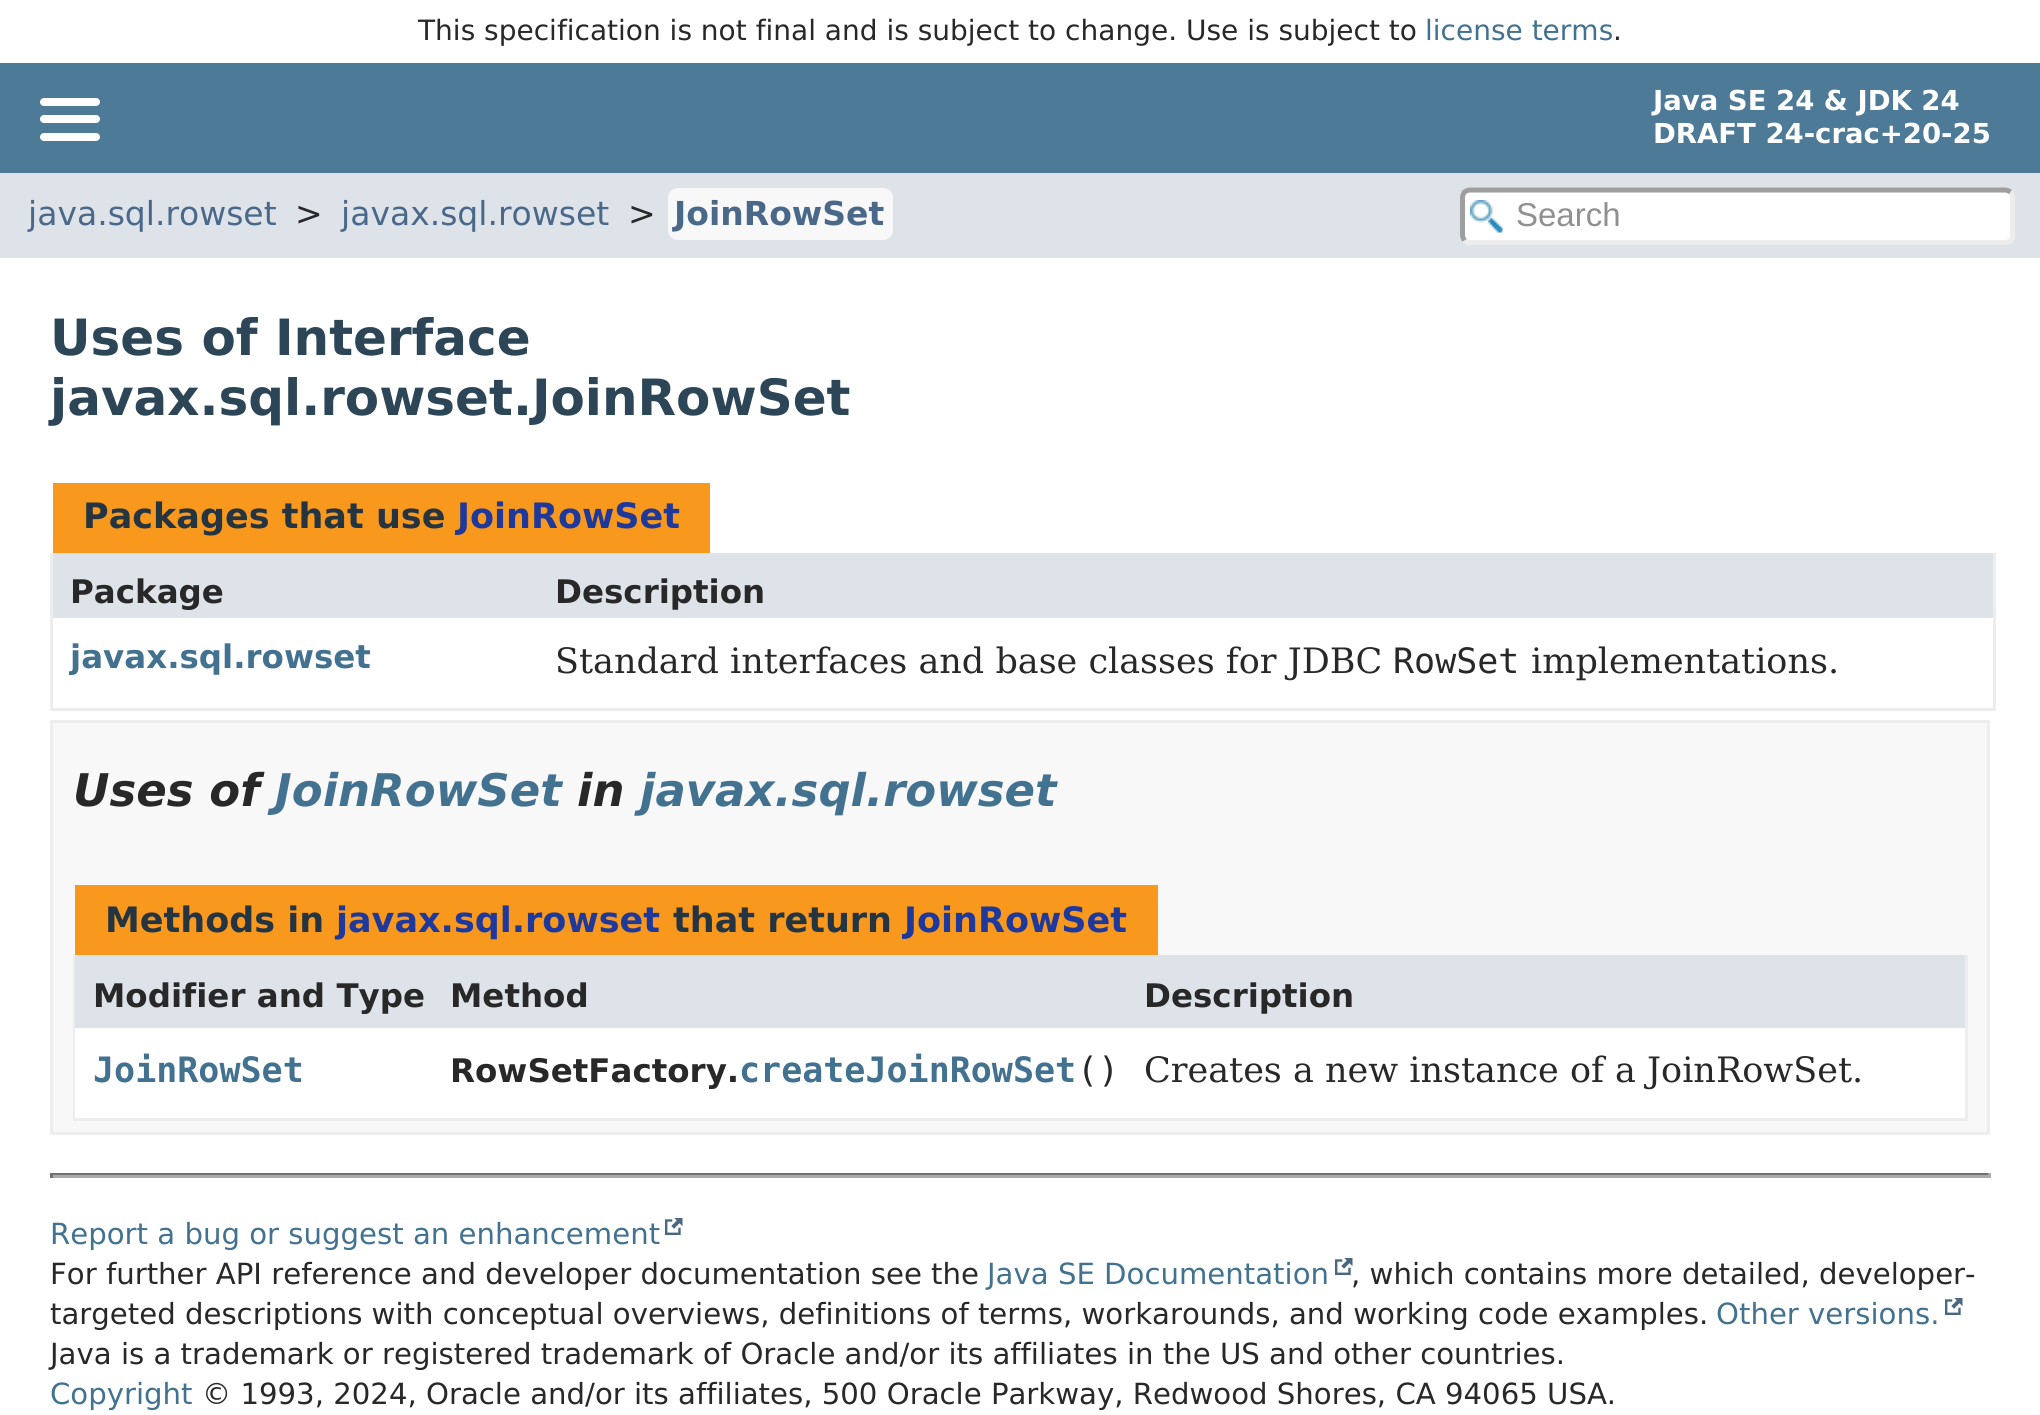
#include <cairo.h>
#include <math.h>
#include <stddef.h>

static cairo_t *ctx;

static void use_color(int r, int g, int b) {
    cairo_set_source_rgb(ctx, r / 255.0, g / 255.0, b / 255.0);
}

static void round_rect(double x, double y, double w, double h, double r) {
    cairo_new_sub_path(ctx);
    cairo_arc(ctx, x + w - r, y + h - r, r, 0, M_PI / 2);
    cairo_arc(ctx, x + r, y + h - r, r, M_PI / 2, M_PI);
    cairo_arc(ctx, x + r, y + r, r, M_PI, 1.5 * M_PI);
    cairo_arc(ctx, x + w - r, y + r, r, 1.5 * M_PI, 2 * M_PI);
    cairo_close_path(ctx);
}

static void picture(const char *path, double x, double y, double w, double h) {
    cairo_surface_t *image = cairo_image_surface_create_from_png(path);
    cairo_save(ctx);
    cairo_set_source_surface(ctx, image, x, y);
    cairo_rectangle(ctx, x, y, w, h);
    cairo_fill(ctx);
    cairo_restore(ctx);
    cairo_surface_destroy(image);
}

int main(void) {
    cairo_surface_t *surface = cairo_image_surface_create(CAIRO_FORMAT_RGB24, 2040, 1415);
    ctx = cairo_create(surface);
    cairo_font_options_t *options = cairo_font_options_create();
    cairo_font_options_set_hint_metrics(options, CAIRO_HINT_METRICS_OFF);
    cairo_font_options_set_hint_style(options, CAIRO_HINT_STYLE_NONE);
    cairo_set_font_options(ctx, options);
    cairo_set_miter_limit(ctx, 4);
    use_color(255, 255, 255);
    cairo_paint(ctx);
    cairo_select_font_face(ctx, "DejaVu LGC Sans", CAIRO_FONT_SLANT_NORMAL, CAIRO_FONT_WEIGHT_NORMAL);
    cairo_set_font_size(ctx, 28);
    use_color(40, 40, 40);
    cairo_move_to(ctx, 418, 40);
    cairo_show_text(ctx, "This specification is not final and is subject to change. Use is subject to");
    use_color(67, 114, 145);
    cairo_move_to(ctx, 1425, 40);
    cairo_show_text(ctx, "license terms");
    use_color(40, 40, 40);
    cairo_move_to(ctx, 1613, 40);
    cairo_show_text(ctx, ".");
    use_color(77, 122, 151);
    cairo_rectangle(ctx, 0, 63, 2040, 110);
    cairo_fill(ctx);
    use_color(255, 255, 255);
    round_rect(40, 98, 60, 8, 4);
    cairo_fill(ctx);
    round_rect(40, 115, 60, 8, 4);
    cairo_fill(ctx);
    round_rect(40, 133, 60, 8, 4);
    cairo_fill(ctx);
    cairo_select_font_face(ctx, "DejaVu LGC Sans", CAIRO_FONT_SLANT_NORMAL, CAIRO_FONT_WEIGHT_BOLD);
    cairo_set_font_size(ctx, 27.5);
    cairo_move_to(ctx, 1653, 110);
    cairo_show_text(ctx, "Java SE 24 & JDK 24");
    cairo_move_to(ctx, 1653, 143);
    cairo_show_text(ctx, "DRAFT 24-crac+20-25");
    use_color(222, 227, 233);
    cairo_rectangle(ctx, 0, 173, 2040, 85);
    cairo_fill(ctx);
    cairo_select_font_face(ctx, "DejaVu LGC Sans", CAIRO_FONT_SLANT_NORMAL, CAIRO_FONT_WEIGHT_NORMAL);
    cairo_set_font_size(ctx, 33);
    use_color(74, 105, 138);
    cairo_move_to(ctx, 28, 225);
    cairo_show_text(ctx, "java.sql.rowset");
    use_color(40, 40, 40);
    cairo_move_to(ctx, 295, 225);
    cairo_show_text(ctx, ">");
    use_color(74, 105, 138);
    cairo_move_to(ctx, 341, 225);
    cairo_show_text(ctx, "javax.sql.rowset");
    use_color(40, 40, 40);
    cairo_move_to(ctx, 628, 225);
    cairo_show_text(ctx, ">");
    use_color(248, 248, 248);
    round_rect(668, 188, 225, 52, 10);
    cairo_fill(ctx);
    cairo_select_font_face(ctx, "DejaVu LGC Sans", CAIRO_FONT_SLANT_NORMAL, CAIRO_FONT_WEIGHT_BOLD);
    use_color(74, 105, 138);
    cairo_move_to(ctx, 674, 225);
    cairo_show_text(ctx, "JoinRowSet");
    use_color(255, 255, 255);
    round_rect(1460, 188, 555, 57, 10);
    cairo_fill(ctx);
    picture("img1.png", 1470, 200, 33, 33);
    cairo_new_path(ctx);
    cairo_move_to(ctx, 2010.5, 192);
    cairo_curve_to(ctx, 2011.5, 193.5, 2012.5, 195.5, 2012.5, 197.5);
    cairo_line_to(ctx, 2012.5, 235);
    cairo_curve_to(ctx, 2012.5, 237, 2011.5, 239, 2010.5, 240.5);
    cairo_curve_to(ctx, 2009, 241.5, 2007, 242.5, 2005, 242.5);
    cairo_line_to(ctx, 1470, 242.5);
    cairo_curve_to(ctx, 1468, 242.5, 1466, 241.5, 1464.5, 240.5);
    use_color(237, 237, 237);
    cairo_set_line_width(ctx, 5);
    cairo_stroke(ctx);
    cairo_new_path(ctx);
    cairo_move_to(ctx, 1464.5, 240.5);
    cairo_curve_to(ctx, 1463.5, 239, 1462.5, 237, 1462.5, 235);
    cairo_line_to(ctx, 1462.5, 197.5);
    cairo_curve_to(ctx, 1462.5, 195.5, 1463.5, 193.5, 1464.5, 192);
    cairo_curve_to(ctx, 1466, 191, 1468, 190, 1470, 190);
    cairo_line_to(ctx, 2005, 190);
    cairo_curve_to(ctx, 2007, 190, 2009, 191, 2010.5, 192);
    use_color(158, 158, 158);
    cairo_stroke(ctx);
    cairo_select_font_face(ctx, "Liberation Sans", CAIRO_FONT_SLANT_NORMAL, CAIRO_FONT_WEIGHT_NORMAL);
    use_color(144, 144, 144);
    cairo_move_to(ctx, 1516, 226);
    cairo_show_text(ctx, "Search");
    cairo_select_font_face(ctx, "DejaVu LGC Sans", CAIRO_FONT_SLANT_NORMAL, CAIRO_FONT_WEIGHT_BOLD);
    cairo_set_font_size(ctx, 50);
    use_color(44, 69, 87);
    cairo_move_to(ctx, 50, 355);
    cairo_show_text(ctx, "Uses of Interface");
    cairo_move_to(ctx, 50, 415);
    cairo_show_text(ctx, "javax.sql.rowset.JoinRowSet");
    use_color(248, 152, 29);
    cairo_rectangle(ctx, 53, 483, 657, 70);
    cairo_fill(ctx);
    cairo_set_font_size(ctx, 35);
    use_color(37, 52, 65);
    cairo_move_to(ctx, 83, 528);
    cairo_show_text(ctx, "Packages that use");
    use_color(31, 56, 156);
    cairo_move_to(ctx, 457, 528);
    cairo_show_text(ctx, "JoinRowSet");
    use_color(237, 237, 237);
    cairo_rectangle(ctx, 1993, 553, 3, 157);
    cairo_fill(ctx);
    cairo_rectangle(ctx, 50, 708, 1945, 3);
    cairo_fill(ctx);
    cairo_rectangle(ctx, 50, 553, 3, 157);
    cairo_fill(ctx);
    use_color(222, 227, 233);
    cairo_rectangle(ctx, 53, 553, 1940, 65);
    cairo_fill(ctx);
    cairo_set_font_size(ctx, 32.5);
    use_color(40, 40, 40);
    cairo_move_to(ctx, 70, 603);
    cairo_show_text(ctx, "Package");
    cairo_move_to(ctx, 555, 603);
    cairo_show_text(ctx, "Description");
    use_color(67, 114, 145);
    cairo_move_to(ctx, 70, 668);
    cairo_show_text(ctx, "javax.sql.rowset");
    cairo_select_font_face(ctx, "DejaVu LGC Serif", CAIRO_FONT_SLANT_NORMAL, CAIRO_FONT_WEIGHT_NORMAL);
    cairo_set_font_size(ctx, 35);
    use_color(40, 40, 40);
    cairo_move_to(ctx, 555, 673);
    cairo_show_text(ctx, "Standard interfaces and base classes for JDBC");
    cairo_select_font_face(ctx, "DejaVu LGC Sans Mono", CAIRO_FONT_SLANT_NORMAL, CAIRO_FONT_WEIGHT_NORMAL);
    cairo_move_to(ctx, 1393, 673);
    cairo_show_text(ctx, "RowSet");
    cairo_select_font_face(ctx, "DejaVu LGC Serif", CAIRO_FONT_SLANT_NORMAL, CAIRO_FONT_WEIGHT_NORMAL);
    cairo_move_to(ctx, 1531, 673);
    cairo_show_text(ctx, "implementations.");
    use_color(248, 248, 248);
    cairo_rectangle(ctx, 51.5, 721.5, 1937, 412);
    cairo_fill_preserve(ctx);
    use_color(237, 237, 237);
    cairo_set_line_width(ctx, 3);
    cairo_stroke(ctx);
    cairo_select_font_face(ctx, "DejaVu LGC Sans", CAIRO_FONT_SLANT_ITALIC, CAIRO_FONT_WEIGHT_BOLD);
    cairo_set_font_size(ctx, 45);
    use_color(40, 40, 40);
    cairo_move_to(ctx, 73, 806);
    cairo_show_text(ctx, "Uses of");
    use_color(67, 114, 145);
    cairo_move_to(ctx, 275, 806);
    cairo_show_text(ctx, "JoinRowSet");
    use_color(40, 40, 40);
    cairo_move_to(ctx, 577, 806);
    cairo_show_text(ctx, "in");
    use_color(67, 114, 145);
    cairo_move_to(ctx, 640, 806);
    cairo_show_text(ctx, "javax.sql.rowset");
    use_color(248, 152, 29);
    cairo_rectangle(ctx, 75, 885, 1083, 70);
    cairo_fill(ctx);
    cairo_select_font_face(ctx, "DejaVu LGC Sans", CAIRO_FONT_SLANT_NORMAL, CAIRO_FONT_WEIGHT_BOLD);
    cairo_set_font_size(ctx, 35);
    use_color(37, 52, 65);
    cairo_move_to(ctx, 105, 932);
    cairo_show_text(ctx, "Methods in");
    use_color(31, 56, 156);
    cairo_move_to(ctx, 336, 932);
    cairo_show_text(ctx, "javax.sql.rowset");
    use_color(37, 52, 65);
    cairo_move_to(ctx, 673, 932);
    cairo_show_text(ctx, "that return");
    use_color(31, 56, 156);
    cairo_move_to(ctx, 904, 932);
    cairo_show_text(ctx, "JoinRowSet");
    use_color(237, 237, 237);
    cairo_rectangle(ctx, 1965, 955, 3, 165);
    cairo_fill(ctx);
    cairo_rectangle(ctx, 73, 1118, 1895, 3);
    cairo_fill(ctx);
    cairo_rectangle(ctx, 73, 955, 3, 165);
    cairo_fill(ctx);
    use_color(222, 227, 233);
    cairo_rectangle(ctx, 75, 955, 1890, 73);
    cairo_fill(ctx);
    cairo_set_font_size(ctx, 32.5);
    use_color(40, 40, 40);
    cairo_move_to(ctx, 93, 1007);
    cairo_show_text(ctx, "Modifier and Type");
    cairo_move_to(ctx, 450, 1007);
    cairo_show_text(ctx, "Method");
    cairo_move_to(ctx, 1144, 1007);
    cairo_show_text(ctx, "Description");
    use_color(255, 255, 255);
    cairo_rectangle(ctx, 75, 1028, 1890, 90);
    cairo_fill(ctx);
    cairo_select_font_face(ctx, "DejaVu LGC Sans Mono", CAIRO_FONT_SLANT_NORMAL, CAIRO_FONT_WEIGHT_BOLD);
    cairo_set_font_size(ctx, 35);
    use_color(67, 114, 145);
    cairo_move_to(ctx, 93, 1082);
    cairo_show_text(ctx, "JoinRowSet");
    cairo_select_font_face(ctx, "DejaVu LGC Sans", CAIRO_FONT_SLANT_NORMAL, CAIRO_FONT_WEIGHT_BOLD);
    cairo_set_font_size(ctx, 32.5);
    use_color(40, 40, 40);
    cairo_move_to(ctx, 450, 1082);
    cairo_show_text(ctx, "RowSetFactory.");
    cairo_select_font_face(ctx, "DejaVu LGC Sans Mono", CAIRO_FONT_SLANT_NORMAL, CAIRO_FONT_WEIGHT_BOLD);
    cairo_set_font_size(ctx, 35);
    use_color(67, 114, 145);
    cairo_move_to(ctx, 739, 1082);
    cairo_show_text(ctx, "createJoinRowSet");
    cairo_select_font_face(ctx, "DejaVu LGC Sans Mono", CAIRO_FONT_SLANT_NORMAL, CAIRO_FONT_WEIGHT_NORMAL);
    use_color(40, 40, 40);
    cairo_move_to(ctx, 1077, 1082);
    cairo_show_text(ctx, "()");
    cairo_select_font_face(ctx, "DejaVu LGC Serif", CAIRO_FONT_SLANT_NORMAL, CAIRO_FONT_WEIGHT_NORMAL);
    cairo_move_to(ctx, 1144, 1082);
    cairo_show_text(ctx, "Creates a new instance of a JoinRowSet.");
    use_color(113, 113, 113);
    cairo_rectangle(ctx, 50, 1173, 1940, 2);
    cairo_fill(ctx);
    use_color(170, 170, 170);
    cairo_rectangle(ctx, 1988, 1173, 3, 5);
    cairo_fill(ctx);
    cairo_rectangle(ctx, 50, 1175, 1940, 3);
    cairo_fill(ctx);
    use_color(113, 113, 113);
    cairo_rectangle(ctx, 50, 1173, 3, 5);
    cairo_fill(ctx);
    cairo_select_font_face(ctx, "DejaVu LGC Sans", CAIRO_FONT_SLANT_NORMAL, CAIRO_FONT_WEIGHT_NORMAL);
    cairo_set_font_size(ctx, 29.17);
    use_color(67, 114, 145);
    cairo_move_to(ctx, 50, 1244);
    cairo_show_text(ctx, "Report a bug or suggest an enhancement");
    picture("img2.png", 665, 1218, 18, 17);
    use_color(40, 40, 40);
    cairo_move_to(ctx, 50, 1284);
    cairo_show_text(ctx, "For further API reference and developer documentation see the");
    use_color(67, 114, 145);
    cairo_move_to(ctx, 987, 1284);
    cairo_show_text(ctx, "Java SE Documentation");
    picture("img2.png", 1335, 1258, 18, 17);
    use_color(40, 40, 40);
    cairo_move_to(ctx, 1351, 1284);
    cairo_show_text(ctx, ", which contains more detailed, developer-");
    cairo_move_to(ctx, 50, 1324);
    cairo_show_text(ctx, "targeted descriptions with conceptual overviews, definitions of terms, workarounds, and working code examples.");
    use_color(67, 114, 145);
    cairo_move_to(ctx, 1716, 1324);
    cairo_show_text(ctx, "Other versions.");
    picture("img2.png", 1945, 1298, 18, 17);
    use_color(40, 40, 40);
    cairo_move_to(ctx, 50, 1364);
    cairo_show_text(ctx, "Java is a trademark or registered trademark of Oracle and/or its affiliates in the US and other countries.");
    use_color(67, 114, 145);
    cairo_move_to(ctx, 50, 1404);
    cairo_show_text(ctx, "Copyright");
    use_color(40, 40, 40);
    cairo_move_to(ctx, 202, 1404);
    cairo_show_text(ctx, "© 1993, 2024, Oracle and/or its affiliates, 500 Oracle Parkway, Redwood Shores, CA 94065 USA.");
    cairo_surface_write_to_png(surface, "result.png");
    cairo_font_options_destroy(options);
    cairo_destroy(ctx);
    cairo_surface_destroy(surface);
    return 0;
}
